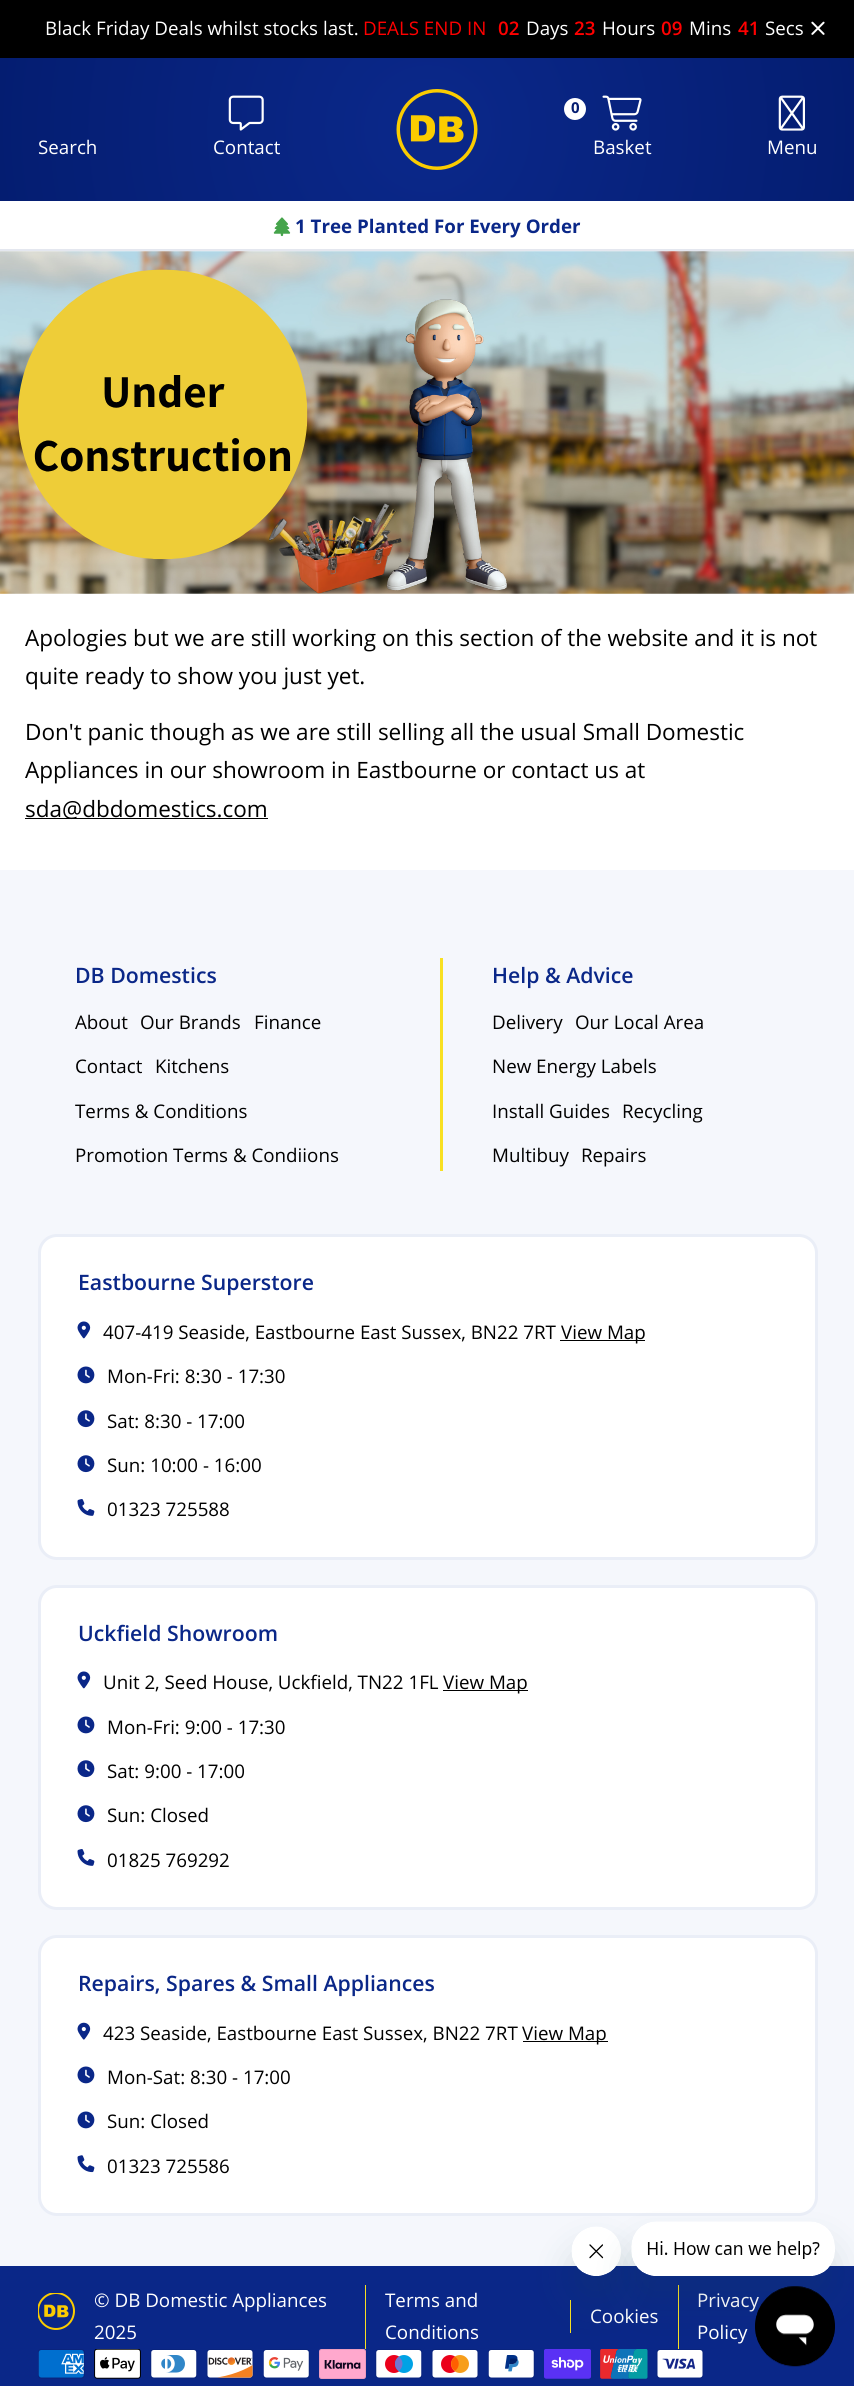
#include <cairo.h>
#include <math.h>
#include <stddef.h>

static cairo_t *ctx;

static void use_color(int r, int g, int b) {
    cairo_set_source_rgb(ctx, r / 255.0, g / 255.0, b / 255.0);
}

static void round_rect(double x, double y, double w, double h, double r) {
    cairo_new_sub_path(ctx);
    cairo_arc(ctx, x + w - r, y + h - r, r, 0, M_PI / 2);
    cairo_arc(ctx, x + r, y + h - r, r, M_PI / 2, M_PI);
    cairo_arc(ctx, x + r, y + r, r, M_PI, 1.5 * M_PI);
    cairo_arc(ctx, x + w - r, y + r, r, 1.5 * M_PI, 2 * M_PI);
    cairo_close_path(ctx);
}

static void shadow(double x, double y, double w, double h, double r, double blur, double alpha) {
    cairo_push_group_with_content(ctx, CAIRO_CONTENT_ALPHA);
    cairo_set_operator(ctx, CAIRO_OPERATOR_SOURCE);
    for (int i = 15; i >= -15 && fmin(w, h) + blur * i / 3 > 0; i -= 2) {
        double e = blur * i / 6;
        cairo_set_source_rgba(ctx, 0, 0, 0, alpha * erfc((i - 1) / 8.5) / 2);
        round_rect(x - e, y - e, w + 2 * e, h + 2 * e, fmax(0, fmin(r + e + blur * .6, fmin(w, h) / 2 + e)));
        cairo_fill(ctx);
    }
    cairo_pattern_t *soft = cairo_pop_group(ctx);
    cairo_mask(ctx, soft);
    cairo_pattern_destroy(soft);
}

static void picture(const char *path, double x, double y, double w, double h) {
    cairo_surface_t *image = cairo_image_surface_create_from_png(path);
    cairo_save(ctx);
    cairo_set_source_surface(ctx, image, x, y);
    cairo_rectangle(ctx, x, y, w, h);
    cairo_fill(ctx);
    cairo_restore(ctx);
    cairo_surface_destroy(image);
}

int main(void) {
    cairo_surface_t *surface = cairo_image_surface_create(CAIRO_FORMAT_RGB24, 854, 2386);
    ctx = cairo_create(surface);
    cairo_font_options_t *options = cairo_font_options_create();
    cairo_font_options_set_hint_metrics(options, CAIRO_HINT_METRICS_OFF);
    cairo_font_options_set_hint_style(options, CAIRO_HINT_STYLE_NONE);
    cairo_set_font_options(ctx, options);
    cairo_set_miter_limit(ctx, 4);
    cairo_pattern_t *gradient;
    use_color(255, 255, 255);
    cairo_paint(ctx);
    use_color(0, 0, 0);
    cairo_rectangle(ctx, 0, 0, 854, 58);
    cairo_fill(ctx);
    cairo_select_font_face(ctx, "Open Sans", CAIRO_FONT_SLANT_NORMAL, CAIRO_FONT_WEIGHT_NORMAL);
    cairo_set_font_size(ctx, 18.75);
    use_color(255, 255, 255);
    cairo_move_to(ctx, 45, 35);
    cairo_show_text(ctx, "Black Friday Deals whilst stocks last.");
    use_color(255, 0, 0);
    cairo_move_to(ctx, 363, 35);
    cairo_show_text(ctx, "DEALS END IN");
    cairo_select_font_face(ctx, "Open Sans SemiBold", CAIRO_FONT_SLANT_NORMAL, CAIRO_FONT_WEIGHT_NORMAL);
    cairo_move_to(ctx, 498, 35);
    cairo_show_text(ctx, "02");
    cairo_select_font_face(ctx, "Open Sans", CAIRO_FONT_SLANT_NORMAL, CAIRO_FONT_WEIGHT_NORMAL);
    use_color(255, 255, 255);
    cairo_move_to(ctx, 526, 35);
    cairo_show_text(ctx, "Days");
    cairo_select_font_face(ctx, "Open Sans SemiBold", CAIRO_FONT_SLANT_NORMAL, CAIRO_FONT_WEIGHT_NORMAL);
    use_color(255, 0, 0);
    cairo_move_to(ctx, 574, 35);
    cairo_show_text(ctx, "23");
    cairo_select_font_face(ctx, "Open Sans", CAIRO_FONT_SLANT_NORMAL, CAIRO_FONT_WEIGHT_NORMAL);
    use_color(255, 255, 255);
    cairo_move_to(ctx, 602, 35);
    cairo_show_text(ctx, "Hours");
    cairo_select_font_face(ctx, "Open Sans SemiBold", CAIRO_FONT_SLANT_NORMAL, CAIRO_FONT_WEIGHT_NORMAL);
    use_color(255, 0, 0);
    cairo_move_to(ctx, 661, 35);
    cairo_show_text(ctx, "09");
    cairo_select_font_face(ctx, "Open Sans", CAIRO_FONT_SLANT_NORMAL, CAIRO_FONT_WEIGHT_NORMAL);
    use_color(255, 255, 255);
    cairo_move_to(ctx, 689, 35);
    cairo_show_text(ctx, "Mins");
    cairo_select_font_face(ctx, "Open Sans SemiBold", CAIRO_FONT_SLANT_NORMAL, CAIRO_FONT_WEIGHT_NORMAL);
    use_color(255, 0, 0);
    cairo_move_to(ctx, 738, 35);
    cairo_show_text(ctx, "41");
    cairo_select_font_face(ctx, "Open Sans", CAIRO_FONT_SLANT_NORMAL, CAIRO_FONT_WEIGHT_NORMAL);
    use_color(255, 255, 255);
    cairo_move_to(ctx, 765, 35);
    cairo_show_text(ctx, "Secs");
    picture("img1.png", 811, 21, 14, 14);
    gradient = cairo_pattern_create_radial(428, 129, 0, 428, 129, 434);
    cairo_pattern_add_color_stop_rgba(gradient, 0.1, 0.039, 0.153, 0.533, 1);
    cairo_pattern_add_color_stop_rgba(gradient, 1, 0.016, 0.114, 0.443, 1);
    cairo_set_source(ctx, gradient);
    cairo_pattern_destroy(gradient);
    cairo_rectangle(ctx, 0, 58, 854, 143);
    cairo_fill(ctx);
    use_color(255, 255, 255);
    cairo_move_to(ctx, 38, 154);
    cairo_show_text(ctx, "Search");
    picture("img2.png", 228, 95, 36, 36);
    cairo_move_to(ctx, 213, 154);
    cairo_show_text(ctx, "Contact");
    picture("img3.png", 396, 89, 82, 81);
    picture("img4.png", 602, 95, 40, 36);
    cairo_arc(ctx, 575, 109, 11, 0, 2 * M_PI);
    cairo_fill(ctx);
    cairo_select_font_face(ctx, "Open Sans", CAIRO_FONT_SLANT_NORMAL, CAIRO_FONT_WEIGHT_BOLD);
    cairo_set_font_size(ctx, 15);
    use_color(4, 29, 113);
    cairo_move_to(ctx, 571, 113);
    cairo_show_text(ctx, "0");
    cairo_select_font_face(ctx, "Open Sans", CAIRO_FONT_SLANT_NORMAL, CAIRO_FONT_WEIGHT_NORMAL);
    cairo_set_font_size(ctx, 18.75);
    use_color(255, 255, 255);
    cairo_move_to(ctx, 593, 154);
    cairo_show_text(ctx, "Basket");
    picture("img5.png", 778, 95, 27, 36);
    cairo_move_to(ctx, 767, 154);
    cairo_show_text(ctx, "Menu");
    use_color(228, 231, 239);
    cairo_rectangle(ctx, 0, 249, 854, 3);
    cairo_fill(ctx);
    picture("img6.png", 273, 217, 18, 20);
    cairo_select_font_face(ctx, "Open Sans", CAIRO_FONT_SLANT_NORMAL, CAIRO_FONT_WEIGHT_BOLD);
    use_color(10, 39, 136);
    cairo_move_to(ctx, 295, 233);
    cairo_show_text(ctx, "1 Tree Planted For Every Order");
    picture("img7.png", 0, 251, 854, 343);
    cairo_select_font_face(ctx, "Open Sans", CAIRO_FONT_SLANT_NORMAL, CAIRO_FONT_WEIGHT_NORMAL);
    cairo_set_font_size(ctx, 22.5);
    use_color(0, 0, 0);
    cairo_move_to(ctx, 25, 646);
    cairo_show_text(ctx, "Apologies but we are still working on this section of the website and it is not");
    cairo_move_to(ctx, 25, 684);
    cairo_show_text(ctx, "quite ready to show you just yet.");
    cairo_move_to(ctx, 25, 740);
    cairo_show_text(ctx, "Don't panic though as we are still selling all the usual Small Domestic");
    cairo_move_to(ctx, 25, 778);
    cairo_show_text(ctx, "Appliances in our showroom in Eastbourne or contact us at");
    cairo_rectangle(ctx, 25, 818, 243, 1);
    cairo_fill(ctx);
    cairo_move_to(ctx, 25, 817);
    cairo_show_text(ctx, "sda@dbdomestics.com");
    use_color(245, 247, 252);
    cairo_rectangle(ctx, 0, 870, 854, 1396);
    cairo_fill(ctx);
    cairo_select_font_face(ctx, "Open Sans SemiBold", CAIRO_FONT_SLANT_NORMAL, CAIRO_FONT_WEIGHT_NORMAL);
    cairo_set_font_size(ctx, 21.25);
    use_color(10, 39, 136);
    cairo_move_to(ctx, 75, 983);
    cairo_show_text(ctx, "DB Domestics");
    cairo_select_font_face(ctx, "Open Sans", CAIRO_FONT_SLANT_NORMAL, CAIRO_FONT_WEIGHT_NORMAL);
    cairo_set_font_size(ctx, 18.75);
    use_color(0, 0, 0);
    cairo_move_to(ctx, 75, 1029);
    cairo_show_text(ctx, "About");
    cairo_move_to(ctx, 140, 1029);
    cairo_show_text(ctx, "Our Brands");
    cairo_move_to(ctx, 254, 1029);
    cairo_show_text(ctx, "Finance");
    cairo_move_to(ctx, 75, 1073);
    cairo_show_text(ctx, "Contact");
    cairo_move_to(ctx, 155, 1073);
    cairo_show_text(ctx, "Kitchens");
    cairo_move_to(ctx, 75, 1118);
    cairo_show_text(ctx, "Terms & Conditions");
    cairo_move_to(ctx, 75, 1162);
    cairo_show_text(ctx, "Promotion Terms & Condiions");
    use_color(248, 224, 34);
    cairo_rectangle(ctx, 440, 958, 3, 213);
    cairo_fill(ctx);
    cairo_select_font_face(ctx, "Open Sans SemiBold", CAIRO_FONT_SLANT_NORMAL, CAIRO_FONT_WEIGHT_NORMAL);
    cairo_set_font_size(ctx, 21.25);
    use_color(10, 39, 136);
    cairo_move_to(ctx, 492, 983);
    cairo_show_text(ctx, "Help & Advice");
    cairo_select_font_face(ctx, "Open Sans", CAIRO_FONT_SLANT_NORMAL, CAIRO_FONT_WEIGHT_NORMAL);
    cairo_set_font_size(ctx, 18.75);
    use_color(0, 0, 0);
    cairo_move_to(ctx, 492, 1029);
    cairo_show_text(ctx, "Delivery");
    cairo_move_to(ctx, 575, 1029);
    cairo_show_text(ctx, "Our Local Area");
    cairo_move_to(ctx, 492, 1073);
    cairo_show_text(ctx, "New Energy Labels");
    cairo_move_to(ctx, 492, 1118);
    cairo_show_text(ctx, "Install Guides");
    cairo_move_to(ctx, 622, 1118);
    cairo_show_text(ctx, "Recycling");
    cairo_move_to(ctx, 492, 1162);
    cairo_show_text(ctx, "Multibuy");
    cairo_move_to(ctx, 581, 1162);
    cairo_show_text(ctx, "Repairs");
    use_color(255, 255, 255);
    round_rect(39.5, 1235.5, 777, 323, 17.5);
    cairo_fill_preserve(ctx);
    use_color(234, 238, 247);
    cairo_set_line_width(ctx, 3);
    cairo_stroke(ctx);
    cairo_select_font_face(ctx, "Open Sans SemiBold", CAIRO_FONT_SLANT_NORMAL, CAIRO_FONT_WEIGHT_NORMAL);
    cairo_set_font_size(ctx, 21.25);
    use_color(10, 39, 136);
    cairo_move_to(ctx, 78, 1290);
    cairo_show_text(ctx, "Eastbourne Superstore");
    picture("img8.png", 77, 1321, 14, 18);
    cairo_select_font_face(ctx, "Open Sans", CAIRO_FONT_SLANT_NORMAL, CAIRO_FONT_WEIGHT_NORMAL);
    cairo_set_font_size(ctx, 18.75);
    use_color(0, 0, 0);
    cairo_move_to(ctx, 103, 1339);
    cairo_show_text(ctx, "407-419 Seaside, Eastbourne East Sussex, BN22 7RT");
    cairo_rectangle(ctx, 560, 1340, 85, 1);
    cairo_fill(ctx);
    cairo_move_to(ctx, 561, 1339);
    cairo_show_text(ctx, "View Map");
    picture("img9.png", 77, 1366, 18, 18);
    cairo_move_to(ctx, 107, 1383);
    cairo_show_text(ctx, "Mon-Fri: 8:30 - 17:30");
    picture("img10.png", 77, 1410, 18, 18);
    cairo_move_to(ctx, 107, 1428);
    cairo_show_text(ctx, "Sat: 8:30 - 17:00");
    picture("img10.png", 77, 1455, 18, 18);
    cairo_move_to(ctx, 107, 1472);
    cairo_show_text(ctx, "Sun: 10:00 - 16:00");
    picture("img11.png", 77, 1499, 18, 17);
    cairo_move_to(ctx, 107, 1516);
    cairo_show_text(ctx, "01323 725588");
    use_color(255, 255, 255);
    round_rect(39.5, 1586.5, 777, 322, 17.5);
    cairo_fill_preserve(ctx);
    use_color(234, 238, 247);
    cairo_stroke(ctx);
    cairo_select_font_face(ctx, "Open Sans SemiBold", CAIRO_FONT_SLANT_NORMAL, CAIRO_FONT_WEIGHT_NORMAL);
    cairo_set_font_size(ctx, 21.25);
    use_color(10, 39, 136);
    cairo_move_to(ctx, 78, 1641);
    cairo_show_text(ctx, "Uckfield Showroom");
    picture("img8.png", 77, 1671, 14, 18);
    cairo_select_font_face(ctx, "Open Sans", CAIRO_FONT_SLANT_NORMAL, CAIRO_FONT_WEIGHT_NORMAL);
    cairo_set_font_size(ctx, 18.75);
    use_color(0, 0, 0);
    cairo_move_to(ctx, 103, 1689);
    cairo_show_text(ctx, "Unit 2, Seed House, Uckfield, TN22 1FL");
    cairo_rectangle(ctx, 443, 1690, 85, 1);
    cairo_fill(ctx);
    cairo_move_to(ctx, 443, 1689);
    cairo_show_text(ctx, "View Map");
    picture("img9.png", 77, 1716, 18, 18);
    cairo_move_to(ctx, 107, 1734);
    cairo_show_text(ctx, "Mon-Fri: 9:00 - 17:30");
    picture("img10.png", 77, 1760, 18, 18);
    cairo_move_to(ctx, 107, 1778);
    cairo_show_text(ctx, "Sat: 9:00 - 17:00");
    picture("img10.png", 77, 1805, 18, 18);
    cairo_move_to(ctx, 107, 1822);
    cairo_show_text(ctx, "Sun: Closed");
    picture("img11.png", 77, 1849, 18, 17);
    cairo_move_to(ctx, 107, 1867);
    cairo_show_text(ctx, "01825 769292");
    use_color(255, 255, 255);
    round_rect(39.5, 1936.5, 777, 278, 17.5);
    cairo_fill_preserve(ctx);
    use_color(234, 238, 247);
    cairo_stroke(ctx);
    cairo_select_font_face(ctx, "Open Sans SemiBold", CAIRO_FONT_SLANT_NORMAL, CAIRO_FONT_WEIGHT_NORMAL);
    cairo_set_font_size(ctx, 21.25);
    use_color(10, 39, 136);
    cairo_move_to(ctx, 78, 1991);
    cairo_show_text(ctx, "Repairs, Spares & Small Appliances");
    picture("img12.png", 77, 2022, 14, 18);
    cairo_select_font_face(ctx, "Open Sans", CAIRO_FONT_SLANT_NORMAL, CAIRO_FONT_WEIGHT_NORMAL);
    cairo_set_font_size(ctx, 18.75);
    use_color(0, 0, 0);
    cairo_move_to(ctx, 103, 2040);
    cairo_show_text(ctx, "423 Seaside, Eastbourne East Sussex, BN22 7RT");
    cairo_rectangle(ctx, 523, 2041, 85, 1);
    cairo_fill(ctx);
    cairo_move_to(ctx, 522, 2040);
    cairo_show_text(ctx, "View Map");
    picture("img9.png", 77, 2066, 18, 18);
    cairo_move_to(ctx, 107, 2084);
    cairo_show_text(ctx, "Mon-Sat: 8:30 - 17:00");
    picture("img9.png", 77, 2111, 18, 18);
    cairo_move_to(ctx, 107, 2128);
    cairo_show_text(ctx, "Sun: Closed");
    picture("img13.png", 77, 2155, 18, 18);
    cairo_move_to(ctx, 107, 2173);
    cairo_show_text(ctx, "01323 725586");
    use_color(10, 39, 136);
    cairo_rectangle(ctx, 0, 2266, 854, 120);
    cairo_fill(ctx);
    picture("img14.png", 38, 2293, 37, 37);
    use_color(255, 255, 255);
    cairo_move_to(ctx, 94, 2307);
    cairo_show_text(ctx, "© DB Domestic Appliances");
    cairo_move_to(ctx, 94, 2339);
    cairo_show_text(ctx, "2025");
    use_color(248, 224, 34);
    cairo_rectangle(ctx, 365, 2285, 1, 64);
    cairo_fill(ctx);
    use_color(255, 255, 255);
    cairo_move_to(ctx, 385, 2307);
    cairo_show_text(ctx, "Terms and");
    cairo_move_to(ctx, 385, 2339);
    cairo_show_text(ctx, "Conditions");
    use_color(248, 224, 34);
    cairo_rectangle(ctx, 570, 2300, 1, 33);
    cairo_fill(ctx);
    use_color(255, 255, 255);
    cairo_move_to(ctx, 590, 2323);
    cairo_show_text(ctx, "Cookies");
    use_color(248, 224, 34);
    cairo_rectangle(ctx, 678, 2285, 1, 64);
    cairo_fill(ctx);
    use_color(255, 255, 255);
    cairo_move_to(ctx, 697, 2307);
    cairo_show_text(ctx, "Privacy");
    cairo_move_to(ctx, 697, 2339);
    cairo_show_text(ctx, "Policy");
    picture("img15.png", 38, 2349, 47, 30);
    picture("img16.png", 94, 2349, 47, 30);
    picture("img17.png", 150, 2349, 48, 30);
    picture("img18.png", 206, 2349, 48, 30);
    picture("img19.png", 263, 2349, 47, 30);
    picture("img20.png", 319, 2349, 47, 30);
    picture("img21.png", 375, 2349, 48, 30);
    picture("img22.png", 431, 2349, 48, 30);
    picture("img23.png", 488, 2349, 47, 30);
    picture("img24.png", 544, 2349, 47, 30);
    picture("img25.png", 600, 2349, 48, 30);
    picture("img26.png", 656, 2349, 48, 30);
    use_color(23, 73, 77);
    shadow(571, 2251, 50, 50, 25, 19, 0.15);
    picture("img28.png", 571, 2226, 50, 50);
    shadow(631, 2246, 204, 55, 25, 19, 0.15);
    picture("img27.png", 631, 2221, 204, 55);
    picture("img29.png", 755, 2286, 80, 81);
    cairo_surface_write_to_png(surface, "result.png");
    cairo_font_options_destroy(options);
    cairo_destroy(ctx);
    cairo_surface_destroy(surface);
    return 0;
}
